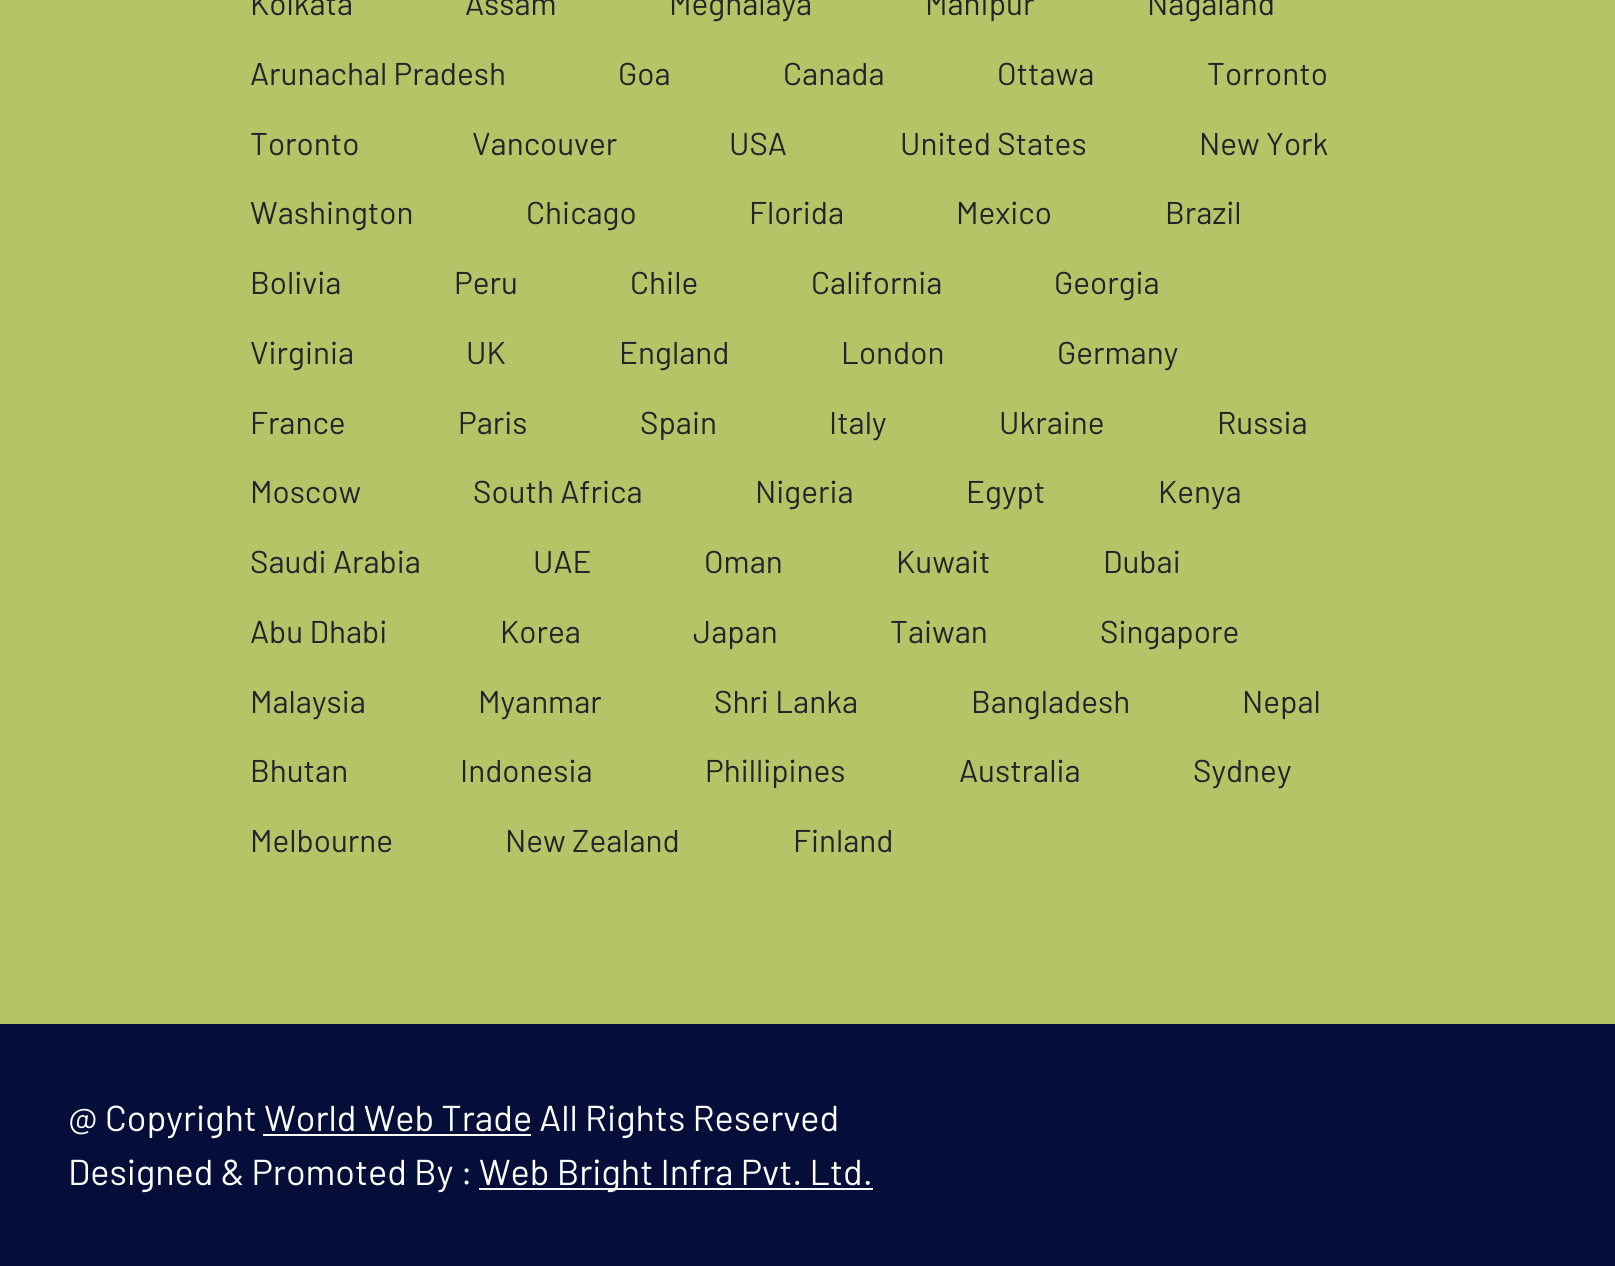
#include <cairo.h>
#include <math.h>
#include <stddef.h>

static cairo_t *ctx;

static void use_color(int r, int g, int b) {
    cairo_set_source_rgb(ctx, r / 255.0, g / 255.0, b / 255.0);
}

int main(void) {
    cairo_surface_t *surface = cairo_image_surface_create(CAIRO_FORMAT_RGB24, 1615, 1266);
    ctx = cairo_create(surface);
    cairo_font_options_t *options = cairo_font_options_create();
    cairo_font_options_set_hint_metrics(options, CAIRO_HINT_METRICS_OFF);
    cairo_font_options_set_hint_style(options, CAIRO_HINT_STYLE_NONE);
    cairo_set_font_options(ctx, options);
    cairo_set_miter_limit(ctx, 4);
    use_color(182, 195, 103);
    cairo_paint(ctx);
    cairo_select_font_face(ctx, "Barlow", CAIRO_FONT_SLANT_NORMAL, CAIRO_FONT_WEIGHT_NORMAL);
    cairo_set_font_size(ctx, 31.5);
    use_color(33, 37, 41);
    cairo_move_to(ctx, 250, 15);
    cairo_show_text(ctx, "Kolkata");
    cairo_move_to(ctx, 465, 15);
    cairo_show_text(ctx, "Assam");
    cairo_move_to(ctx, 669, 15);
    cairo_show_text(ctx, "Meghalaya");
    cairo_move_to(ctx, 925, 15);
    cairo_show_text(ctx, "Manipur");
    cairo_move_to(ctx, 1147, 15);
    cairo_show_text(ctx, "Nagaland");
    cairo_move_to(ctx, 250, 85);
    cairo_show_text(ctx, "Arunachal Pradesh");
    cairo_move_to(ctx, 618, 85);
    cairo_show_text(ctx, "Goa");
    cairo_move_to(ctx, 783, 85);
    cairo_show_text(ctx, "Canada");
    cairo_move_to(ctx, 997, 85);
    cairo_show_text(ctx, "Ottawa");
    cairo_move_to(ctx, 1207, 85);
    cairo_show_text(ctx, "Torronto");
    cairo_move_to(ctx, 250, 155);
    cairo_show_text(ctx, "Toronto");
    cairo_move_to(ctx, 472, 155);
    cairo_show_text(ctx, "Vancouver");
    cairo_move_to(ctx, 729, 155);
    cairo_show_text(ctx, "USA");
    cairo_move_to(ctx, 900, 155);
    cairo_show_text(ctx, "United States");
    cairo_move_to(ctx, 1199, 155);
    cairo_show_text(ctx, "New York");
    cairo_move_to(ctx, 250, 224);
    cairo_show_text(ctx, "Washington");
    cairo_move_to(ctx, 526, 224);
    cairo_show_text(ctx, "Chicago");
    cairo_move_to(ctx, 749, 224);
    cairo_show_text(ctx, "Florida");
    cairo_move_to(ctx, 956, 224);
    cairo_show_text(ctx, "Mexico");
    cairo_move_to(ctx, 1165, 224);
    cairo_show_text(ctx, "Brazil");
    cairo_move_to(ctx, 250, 294);
    cairo_show_text(ctx, "Bolivia");
    cairo_move_to(ctx, 454, 294);
    cairo_show_text(ctx, "Peru");
    cairo_move_to(ctx, 630, 294);
    cairo_show_text(ctx, "Chile");
    cairo_move_to(ctx, 811, 294);
    cairo_show_text(ctx, "California");
    cairo_move_to(ctx, 1054, 294);
    cairo_show_text(ctx, "Georgia");
    cairo_move_to(ctx, 250, 364);
    cairo_show_text(ctx, "Virginia");
    cairo_move_to(ctx, 466, 364);
    cairo_show_text(ctx, "UK");
    cairo_move_to(ctx, 619, 364);
    cairo_show_text(ctx, "England");
    cairo_move_to(ctx, 841, 364);
    cairo_show_text(ctx, "London");
    cairo_move_to(ctx, 1057, 364);
    cairo_show_text(ctx, "Germany");
    cairo_move_to(ctx, 250, 434);
    cairo_show_text(ctx, "France");
    cairo_move_to(ctx, 458, 434);
    cairo_show_text(ctx, "Paris");
    cairo_move_to(ctx, 640, 434);
    cairo_show_text(ctx, "Spain");
    cairo_move_to(ctx, 829, 434);
    cairo_show_text(ctx, "Italy");
    cairo_move_to(ctx, 999, 434);
    cairo_show_text(ctx, "Ukraine");
    cairo_move_to(ctx, 1217, 434);
    cairo_show_text(ctx, "Russia");
    cairo_move_to(ctx, 250, 503);
    cairo_show_text(ctx, "Moscow");
    cairo_move_to(ctx, 473, 503);
    cairo_show_text(ctx, "South Africa");
    cairo_move_to(ctx, 755, 503);
    cairo_show_text(ctx, "Nigeria");
    cairo_move_to(ctx, 966, 503);
    cairo_show_text(ctx, "Egypt");
    cairo_move_to(ctx, 1158, 503);
    cairo_show_text(ctx, "Kenya");
    cairo_move_to(ctx, 250, 573);
    cairo_show_text(ctx, "Saudi Arabia");
    cairo_move_to(ctx, 533, 573);
    cairo_show_text(ctx, "UAE");
    cairo_move_to(ctx, 704, 573);
    cairo_show_text(ctx, "Oman");
    cairo_move_to(ctx, 896, 573);
    cairo_show_text(ctx, "Kuwait");
    cairo_move_to(ctx, 1103, 573);
    cairo_show_text(ctx, "Dubai");
    cairo_move_to(ctx, 250, 643);
    cairo_show_text(ctx, "Abu Dhabi");
    cairo_move_to(ctx, 500, 643);
    cairo_show_text(ctx, "Korea");
    cairo_move_to(ctx, 693, 643);
    cairo_show_text(ctx, "Japan");
    cairo_move_to(ctx, 890, 643);
    cairo_show_text(ctx, "Taiwan");
    cairo_move_to(ctx, 1100, 643);
    cairo_show_text(ctx, "Singapore");
    cairo_move_to(ctx, 250, 713);
    cairo_show_text(ctx, "Malaysia");
    cairo_move_to(ctx, 478, 713);
    cairo_show_text(ctx, "Myanmar");
    cairo_move_to(ctx, 714, 713);
    cairo_show_text(ctx, "Shri Lanka");
    cairo_move_to(ctx, 971, 713);
    cairo_show_text(ctx, "Bangladesh");
    cairo_move_to(ctx, 1242, 713);
    cairo_show_text(ctx, "Nepal");
    cairo_move_to(ctx, 250, 782);
    cairo_show_text(ctx, "Bhutan");
    cairo_move_to(ctx, 460, 782);
    cairo_show_text(ctx, "Indonesia");
    cairo_move_to(ctx, 705, 782);
    cairo_show_text(ctx, "Phillipines");
    cairo_move_to(ctx, 959, 782);
    cairo_show_text(ctx, "Australia");
    cairo_move_to(ctx, 1193, 782);
    cairo_show_text(ctx, "Sydney");
    cairo_move_to(ctx, 250, 852);
    cairo_show_text(ctx, "Melbourne");
    cairo_move_to(ctx, 505, 852);
    cairo_show_text(ctx, "New Zealand");
    cairo_move_to(ctx, 793, 852);
    cairo_show_text(ctx, "Finland");
    use_color(5, 14, 57);
    cairo_rectangle(ctx, 0, 1024, 1615, 242);
    cairo_fill(ctx);
    cairo_set_font_size(ctx, 36);
    use_color(255, 255, 255);
    cairo_move_to(ctx, 68, 1131);
    cairo_show_text(ctx, "@ Copyright World Web Trade All Rights Reserved");
    cairo_rectangle(ctx, 263, 1134, 268, 2);
    cairo_fill(ctx);
    cairo_move_to(ctx, 68, 1185);
    cairo_show_text(ctx, "Designed & Promoted By :");
    cairo_rectangle(ctx, 479, 1188, 394, 2);
    cairo_fill(ctx);
    cairo_move_to(ctx, 479, 1185);
    cairo_show_text(ctx, "Web Bright Infra Pvt. Ltd.");
    cairo_surface_write_to_png(surface, "result.png");
    cairo_font_options_destroy(options);
    cairo_destroy(ctx);
    cairo_surface_destroy(surface);
    return 0;
}
